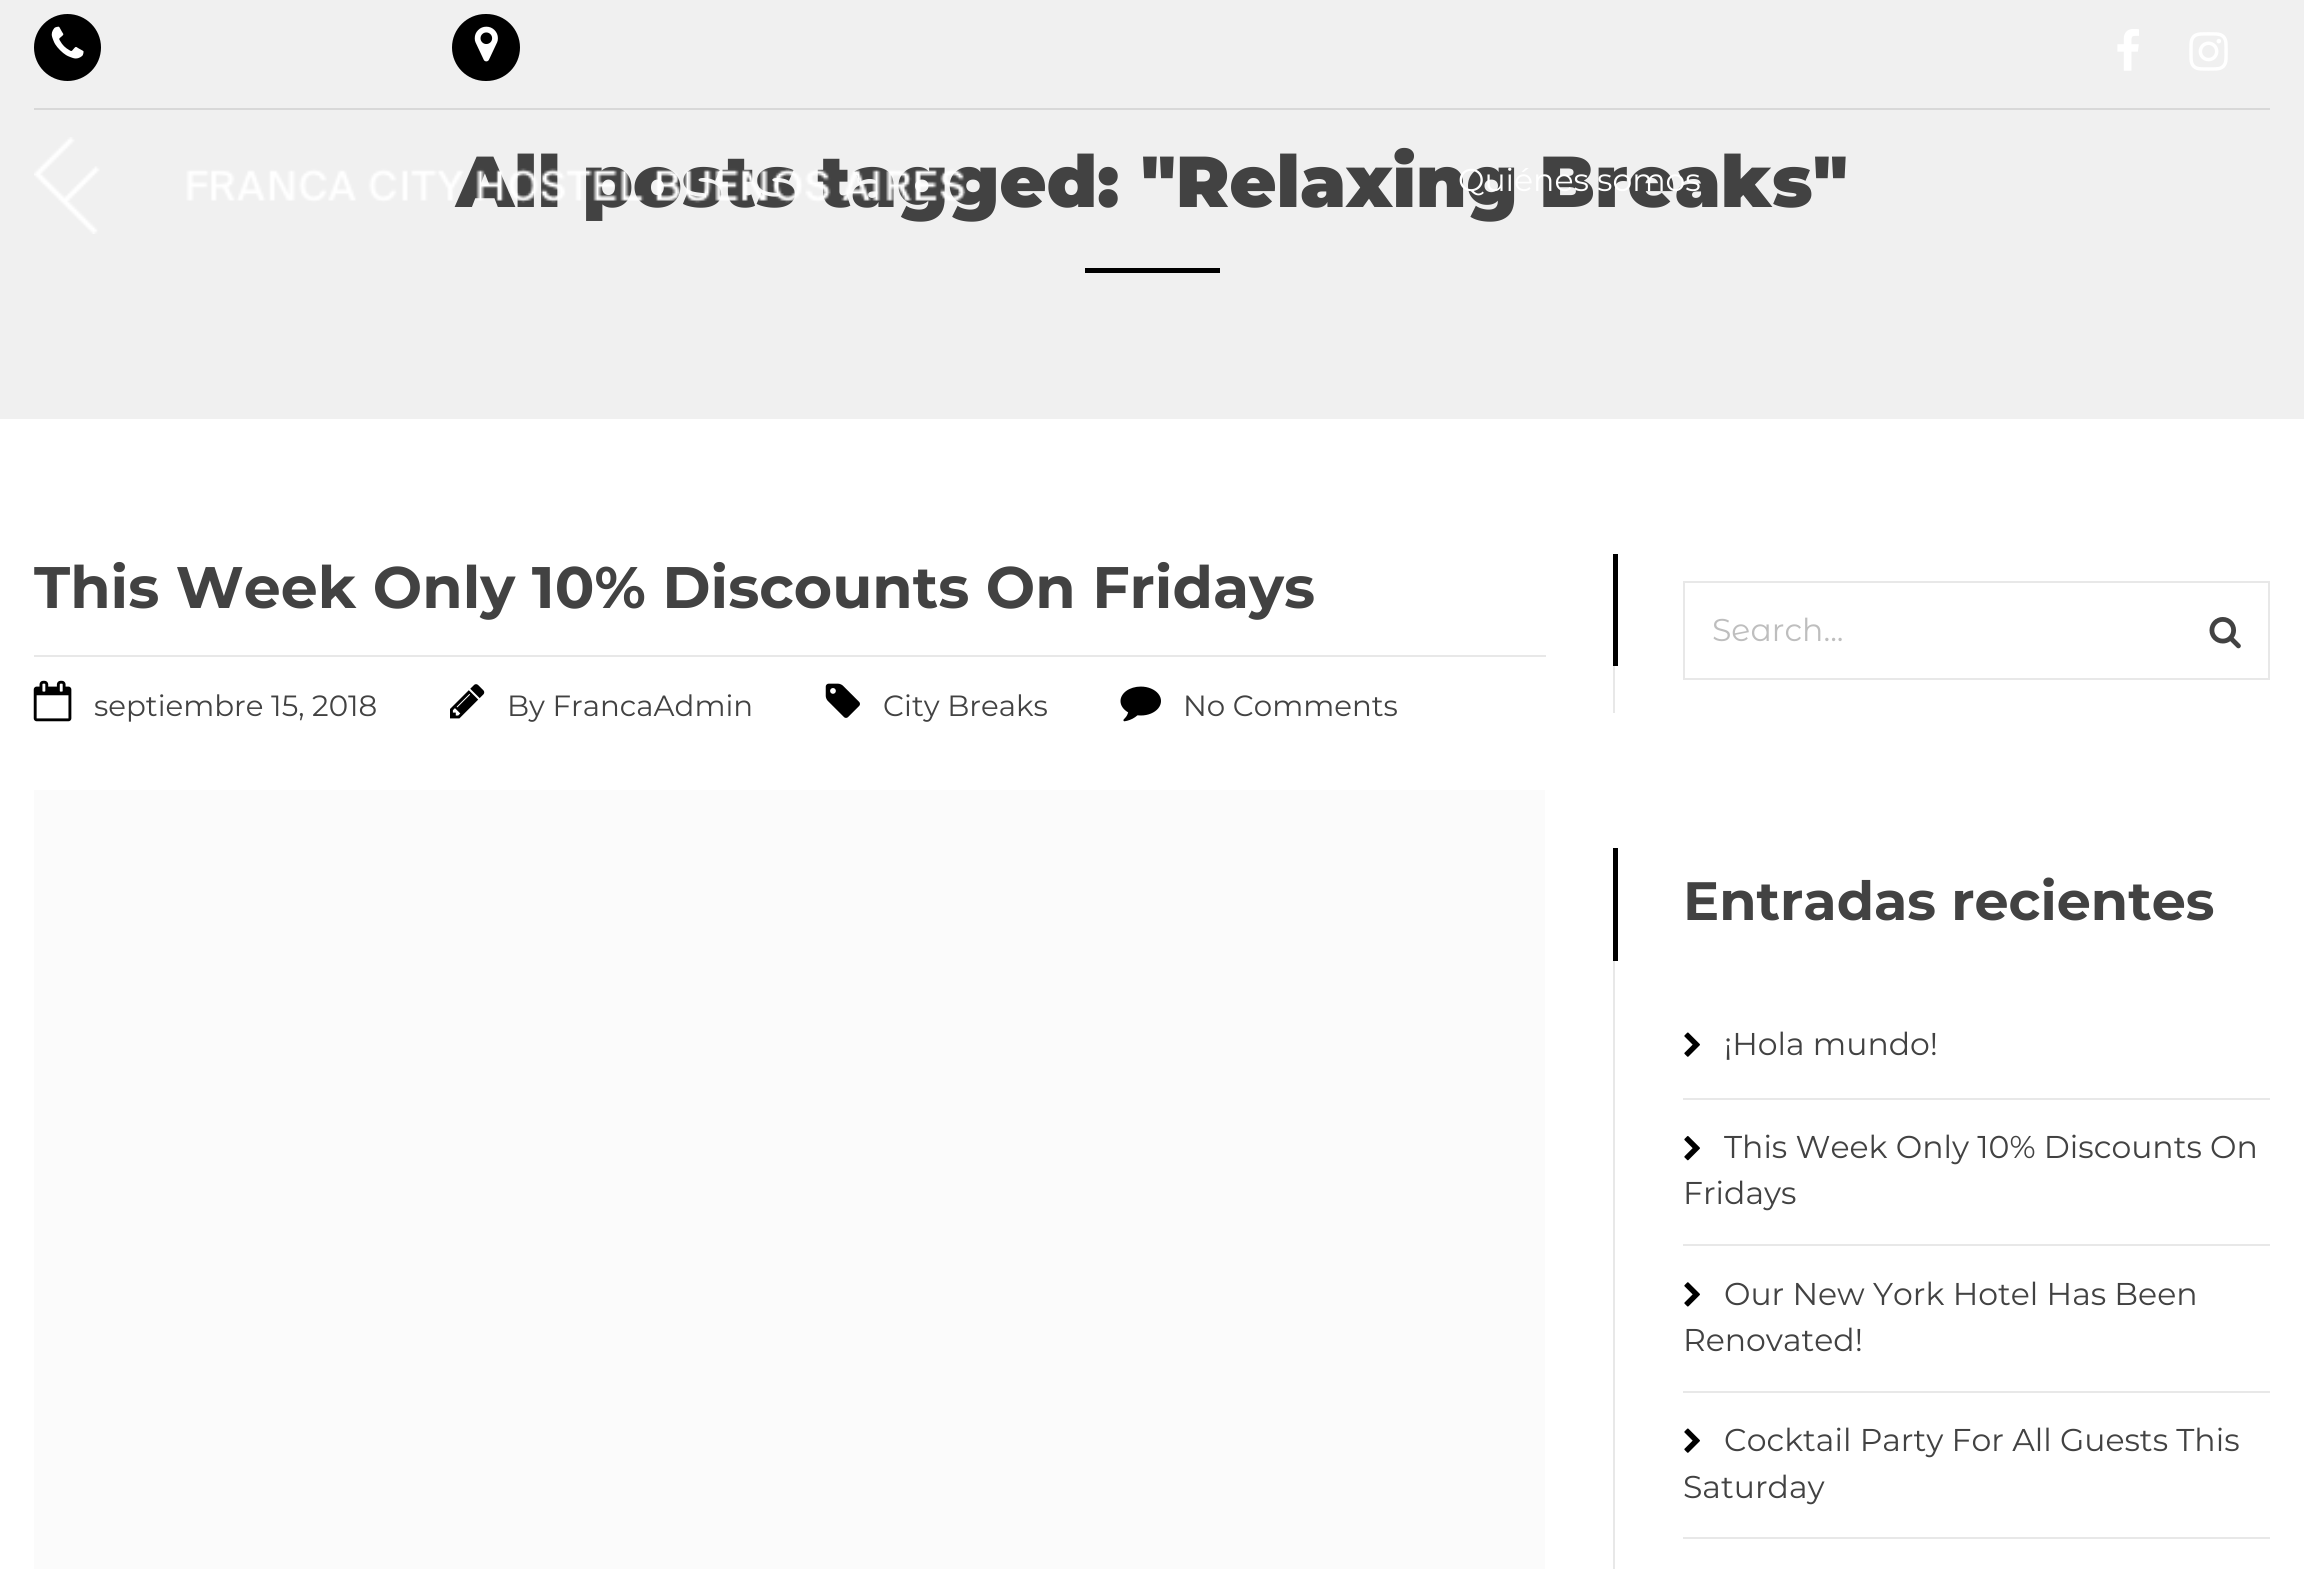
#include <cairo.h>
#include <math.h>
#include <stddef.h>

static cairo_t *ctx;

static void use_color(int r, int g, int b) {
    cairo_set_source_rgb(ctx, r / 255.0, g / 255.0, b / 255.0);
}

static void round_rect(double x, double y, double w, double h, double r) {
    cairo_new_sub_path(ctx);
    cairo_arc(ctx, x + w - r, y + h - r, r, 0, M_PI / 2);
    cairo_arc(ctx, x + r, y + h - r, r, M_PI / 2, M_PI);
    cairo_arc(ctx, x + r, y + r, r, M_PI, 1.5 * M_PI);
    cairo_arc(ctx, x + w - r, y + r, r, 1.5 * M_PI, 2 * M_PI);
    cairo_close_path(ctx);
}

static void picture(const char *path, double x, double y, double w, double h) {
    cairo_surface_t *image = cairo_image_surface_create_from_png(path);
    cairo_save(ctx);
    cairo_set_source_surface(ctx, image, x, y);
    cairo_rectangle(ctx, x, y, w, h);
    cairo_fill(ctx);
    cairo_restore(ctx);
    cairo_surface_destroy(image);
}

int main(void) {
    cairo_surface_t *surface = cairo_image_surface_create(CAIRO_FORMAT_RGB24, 2304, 1569);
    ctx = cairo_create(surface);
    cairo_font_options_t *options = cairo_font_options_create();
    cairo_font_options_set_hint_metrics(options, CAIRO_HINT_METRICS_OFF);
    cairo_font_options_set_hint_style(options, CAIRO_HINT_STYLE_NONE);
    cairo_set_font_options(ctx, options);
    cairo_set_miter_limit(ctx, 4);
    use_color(255, 255, 255);
    cairo_paint(ctx);
    use_color(240, 240, 240);
    cairo_rectangle(ctx, 0, 0, 2304, 419);
    cairo_fill(ctx);
    cairo_select_font_face(ctx, "Montserrat Black", CAIRO_FONT_SLANT_NORMAL, CAIRO_FONT_WEIGHT_NORMAL);
    cairo_set_font_size(ctx, 72);
    use_color(66, 66, 66);
    cairo_move_to(ctx, 456, 207);
    cairo_show_text(ctx, "All posts tagged: \"Relaxing Breaks\"");
    use_color(0, 0, 0);
    cairo_rectangle(ctx, 1085, 268, 135, 5);
    cairo_fill(ctx);
    use_color(216, 216, 216);
    cairo_rectangle(ctx, 34, 108, 2236, 2);
    cairo_fill(ctx);
    use_color(0, 0, 0);
    cairo_arc(ctx, 67.5, 47.5, 33.5, 0, 2 * M_PI);
    cairo_fill(ctx);
    picture("img1.png", 51, 26, 33, 33);
    round_rect(452, 14, 68, 67, 33.5);
    cairo_fill(ctx);
    picture("img2.png", 474, 26, 24, 36);
    picture("img3.png", 2117, 29, 22, 42);
    picture("img4.png", 2189, 32, 39, 39);
    picture("img5.png", 34, 137, 932, 97);
    cairo_select_font_face(ctx, "Montserrat", CAIRO_FONT_SLANT_NORMAL, CAIRO_FONT_WEIGHT_NORMAL);
    cairo_set_font_size(ctx, 31.5);
    use_color(255, 255, 255);
    cairo_move_to(ctx, 1458, 191);
    cairo_show_text(ctx, "Quiénes somos");
    cairo_select_font_face(ctx, "Montserrat", CAIRO_FONT_SLANT_NORMAL, CAIRO_FONT_WEIGHT_BOLD);
    cairo_set_font_size(ctx, 58.5);
    use_color(66, 66, 66);
    cairo_move_to(ctx, 34, 608);
    cairo_show_text(ctx, "This Week Only 10% Discounts On Fridays");
    use_color(232, 232, 232);
    cairo_rectangle(ctx, 34, 655, 1512, 2);
    cairo_fill(ctx);
    picture("img6.png", 33, 680, 39, 42);
    cairo_select_font_face(ctx, "Montserrat", CAIRO_FONT_SLANT_NORMAL, CAIRO_FONT_WEIGHT_NORMAL);
    cairo_set_font_size(ctx, 29.25);
    use_color(66, 66, 66);
    cairo_move_to(ctx, 94, 716);
    cairo_show_text(ctx, "septiembre 15, 2018");
    picture("img7.png", 450, 684, 35, 35);
    cairo_move_to(ctx, 507, 716);
    cairo_show_text(ctx, "By FrancaAdmin");
    picture("img8.png", 825, 683, 35, 35);
    cairo_move_to(ctx, 883, 716);
    cairo_show_text(ctx, "City Breaks");
    picture("img9.png", 1120, 686, 41, 36);
    cairo_move_to(ctx, 1183, 716);
    cairo_show_text(ctx, "No Comments");
    use_color(251, 251, 251);
    cairo_rectangle(ctx, 34, 790, 1511, 779);
    cairo_fill(ctx);
    use_color(232, 232, 232);
    cairo_rectangle(ctx, 1613, 666, 2, 47);
    cairo_fill(ctx);
    use_color(0, 0, 0);
    cairo_rectangle(ctx, 1613, 554, 5, 112);
    cairo_fill(ctx);
    cairo_rectangle(ctx, 1684, 582, 585, 97);
    use_color(232, 232, 232);
    cairo_stroke(ctx);
    cairo_select_font_face(ctx, "Montserrat Alternates", CAIRO_FONT_SLANT_NORMAL, CAIRO_FONT_WEIGHT_NORMAL);
    cairo_set_font_size(ctx, 31.5);
    use_color(190, 190, 190);
    cairo_move_to(ctx, 1712, 641);
    cairo_show_text(ctx, "Search...");
    picture("img10.png", 2209, 617, 32, 32);
    use_color(232, 232, 232);
    cairo_rectangle(ctx, 1613, 961, 2, 608);
    cairo_fill(ctx);
    use_color(0, 0, 0);
    cairo_rectangle(ctx, 1613, 848, 5, 113);
    cairo_fill(ctx);
    cairo_select_font_face(ctx, "Montserrat", CAIRO_FONT_SLANT_NORMAL, CAIRO_FONT_WEIGHT_BOLD);
    cairo_set_font_size(ctx, 54);
    use_color(66, 66, 66);
    cairo_move_to(ctx, 1683, 920);
    cairo_show_text(ctx, "Entradas recientes");
    use_color(232, 232, 232);
    cairo_rectangle(ctx, 1683, 1098, 587, 2);
    cairo_fill(ctx);
    picture("img11.png", 1684, 1032, 16, 25);
    cairo_select_font_face(ctx, "Montserrat", CAIRO_FONT_SLANT_NORMAL, CAIRO_FONT_WEIGHT_NORMAL);
    cairo_set_font_size(ctx, 31.5);
    use_color(66, 66, 66);
    cairo_move_to(ctx, 1724, 1055);
    cairo_show_text(ctx, "¡Hola mundo!");
    use_color(232, 232, 232);
    cairo_rectangle(ctx, 1683, 1244, 587, 2);
    cairo_fill(ctx);
    picture("img12.png", 1684, 1136, 16, 25);
    use_color(66, 66, 66);
    cairo_move_to(ctx, 1724, 1158);
    cairo_show_text(ctx, "This Week Only 10% Discounts On");
    cairo_move_to(ctx, 1683, 1204);
    cairo_show_text(ctx, "Fridays");
    use_color(232, 232, 232);
    cairo_rectangle(ctx, 1683, 1391, 587, 2);
    cairo_fill(ctx);
    picture("img13.png", 1684, 1282, 16, 25);
    use_color(66, 66, 66);
    cairo_move_to(ctx, 1724, 1305);
    cairo_show_text(ctx, "Our New York Hotel Has Been");
    cairo_move_to(ctx, 1683, 1351);
    cairo_show_text(ctx, "Renovated!");
    use_color(232, 232, 232);
    cairo_rectangle(ctx, 1683, 1537, 587, 2);
    cairo_fill(ctx);
    picture("img11.png", 1684, 1428, 16, 25);
    use_color(66, 66, 66);
    cairo_move_to(ctx, 1724, 1451);
    cairo_show_text(ctx, "Cocktail Party For All Guests This");
    cairo_move_to(ctx, 1683, 1498);
    cairo_show_text(ctx, "Saturday");
    cairo_surface_write_to_png(surface, "result.png");
    cairo_font_options_destroy(options);
    cairo_destroy(ctx);
    cairo_surface_destroy(surface);
    return 0;
}
